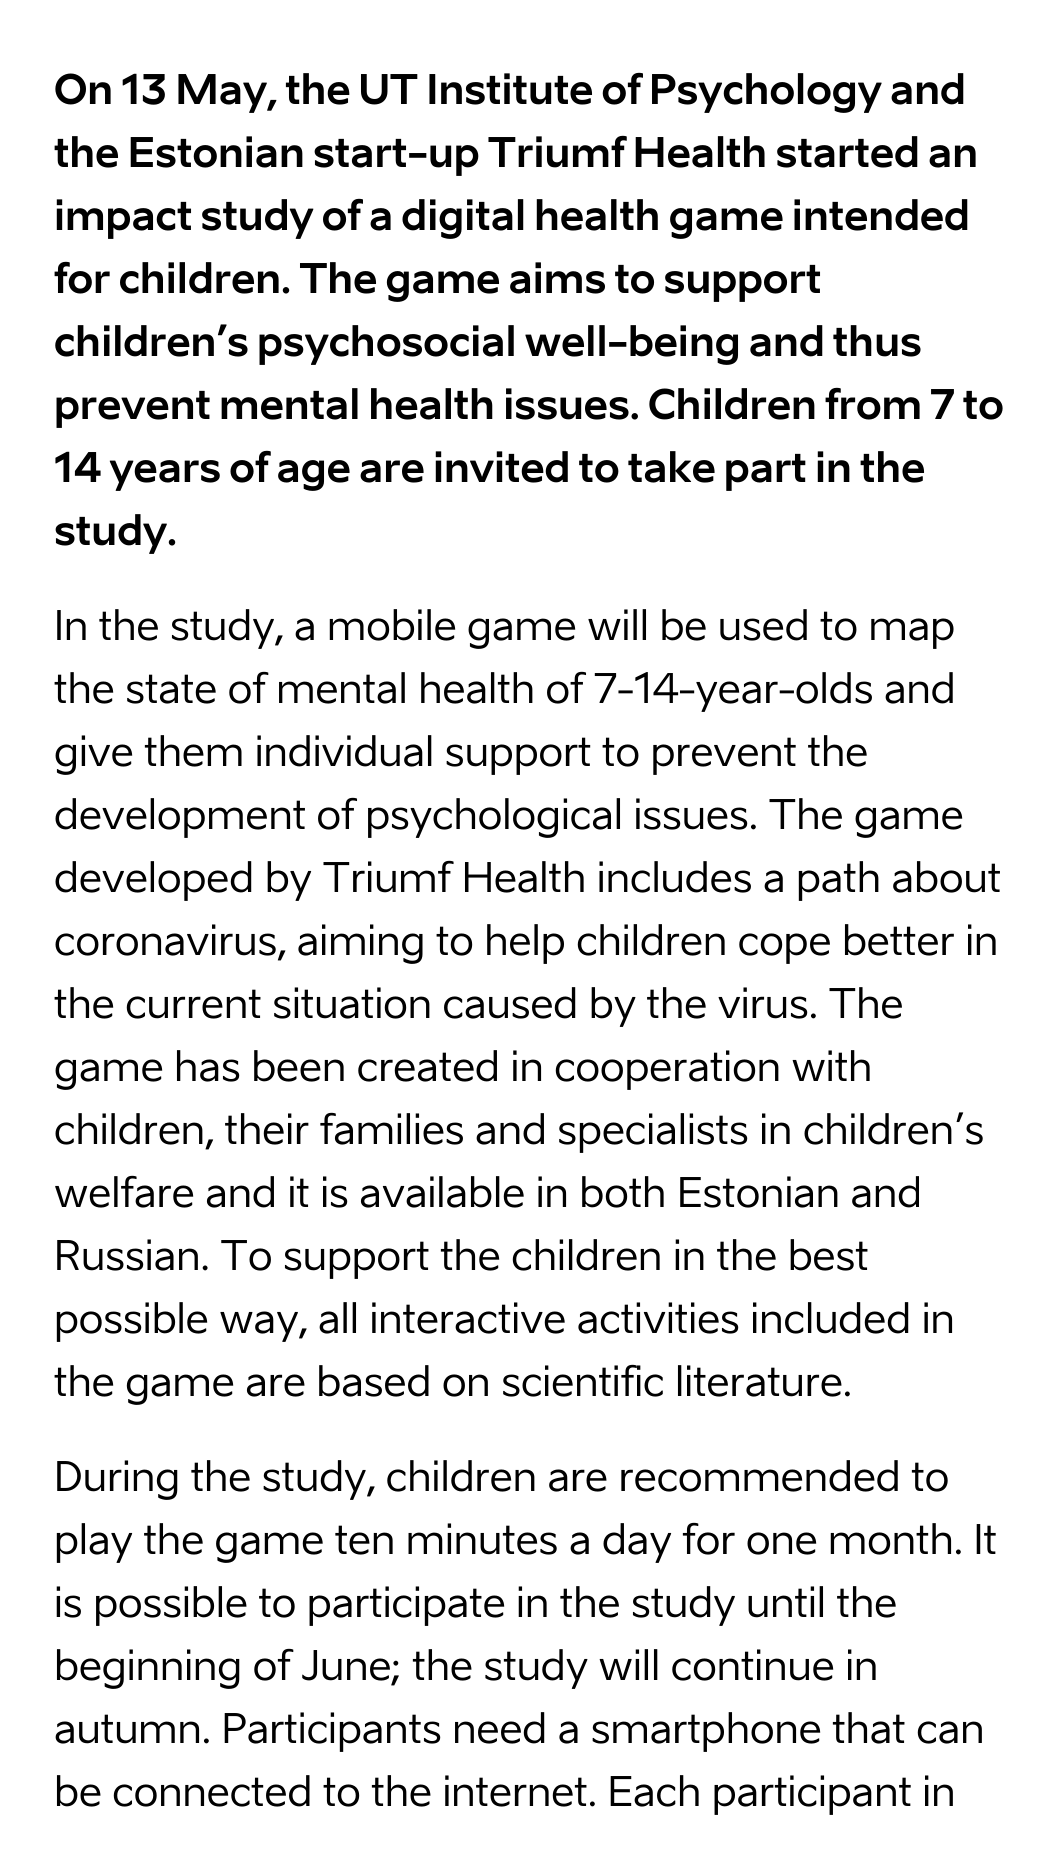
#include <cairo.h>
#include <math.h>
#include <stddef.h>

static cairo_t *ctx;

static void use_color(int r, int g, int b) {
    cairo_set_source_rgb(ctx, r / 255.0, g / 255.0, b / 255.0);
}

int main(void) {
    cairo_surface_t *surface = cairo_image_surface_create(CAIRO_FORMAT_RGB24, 1062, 1851);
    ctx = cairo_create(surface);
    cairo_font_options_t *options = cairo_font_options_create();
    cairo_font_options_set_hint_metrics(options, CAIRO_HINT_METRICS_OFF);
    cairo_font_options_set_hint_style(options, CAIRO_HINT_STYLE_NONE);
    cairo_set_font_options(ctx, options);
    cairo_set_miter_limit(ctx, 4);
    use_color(255, 255, 255);
    cairo_paint(ctx);
    cairo_select_font_face(ctx, "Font", CAIRO_FONT_SLANT_NORMAL, CAIRO_FONT_WEIGHT_BOLD);
    cairo_set_font_size(ctx, 40.5);
    use_color(0, 0, 0);
    cairo_move_to(ctx, 54, 104);
    cairo_show_text(ctx, "On 13 May, the UT Institute of Psychology and");
    cairo_move_to(ctx, 54, 167);
    cairo_show_text(ctx, "the Estonian start-up Triumf Health started an");
    cairo_move_to(ctx, 54, 230);
    cairo_show_text(ctx, "impact study of a digital health game intended");
    cairo_move_to(ctx, 54, 293);
    cairo_show_text(ctx, "for children. The game aims to support");
    cairo_move_to(ctx, 54, 356);
    cairo_show_text(ctx, "children’s psychosocial well-being and thus");
    cairo_move_to(ctx, 54, 419);
    cairo_show_text(ctx, "prevent mental health issues. Children from 7 to");
    cairo_move_to(ctx, 54, 482);
    cairo_show_text(ctx, "14 years of age are invited to take part in the");
    cairo_move_to(ctx, 54, 545);
    cairo_show_text(ctx, "study.");
    cairo_select_font_face(ctx, "Font", CAIRO_FONT_SLANT_NORMAL, CAIRO_FONT_WEIGHT_NORMAL);
    cairo_move_to(ctx, 54, 640);
    cairo_show_text(ctx, "In the study, a mobile game will be used to map");
    cairo_move_to(ctx, 54, 703);
    cairo_show_text(ctx, "the state of mental health of 7-14-year-olds and");
    cairo_move_to(ctx, 54, 766);
    cairo_show_text(ctx, "give them individual support to prevent the");
    cairo_move_to(ctx, 54, 829);
    cairo_show_text(ctx, "development of psychological issues. The game");
    cairo_move_to(ctx, 54, 892);
    cairo_show_text(ctx, "developed by Triumf Health includes a path about");
    cairo_move_to(ctx, 54, 955);
    cairo_show_text(ctx, "coronavirus, aiming to help children cope better in");
    cairo_move_to(ctx, 54, 1018);
    cairo_show_text(ctx, "the current situation caused by the virus. The");
    cairo_move_to(ctx, 54, 1081);
    cairo_show_text(ctx, "game has been created in cooperation with");
    cairo_move_to(ctx, 54, 1144);
    cairo_show_text(ctx, "children, their families and specialists in children’s");
    cairo_move_to(ctx, 54, 1207);
    cairo_show_text(ctx, "welfare and it is available in both Estonian and");
    cairo_move_to(ctx, 54, 1270);
    cairo_show_text(ctx, "Russian. To support the children in the best");
    cairo_move_to(ctx, 54, 1333);
    cairo_show_text(ctx, "possible way, all interactive activities included in");
    cairo_move_to(ctx, 54, 1396);
    cairo_show_text(ctx, "the game are based on scientific literature.");
    cairo_move_to(ctx, 54, 1491);
    cairo_show_text(ctx, "During the study, children are recommended to");
    cairo_move_to(ctx, 54, 1554);
    cairo_show_text(ctx, "play the game ten minutes a day for one month. It");
    cairo_move_to(ctx, 54, 1617);
    cairo_show_text(ctx, "is possible to participate in the study until the");
    cairo_move_to(ctx, 54, 1680);
    cairo_show_text(ctx, "beginning of June; the study will continue in");
    cairo_move_to(ctx, 54, 1743);
    cairo_show_text(ctx, "autumn. Participants need a smartphone that can");
    cairo_move_to(ctx, 54, 1806);
    cairo_show_text(ctx, "be connected to the internet. Each participant in");
    cairo_surface_write_to_png(surface, "result.png");
    cairo_font_options_destroy(options);
    cairo_destroy(ctx);
    cairo_surface_destroy(surface);
    return 0;
}
